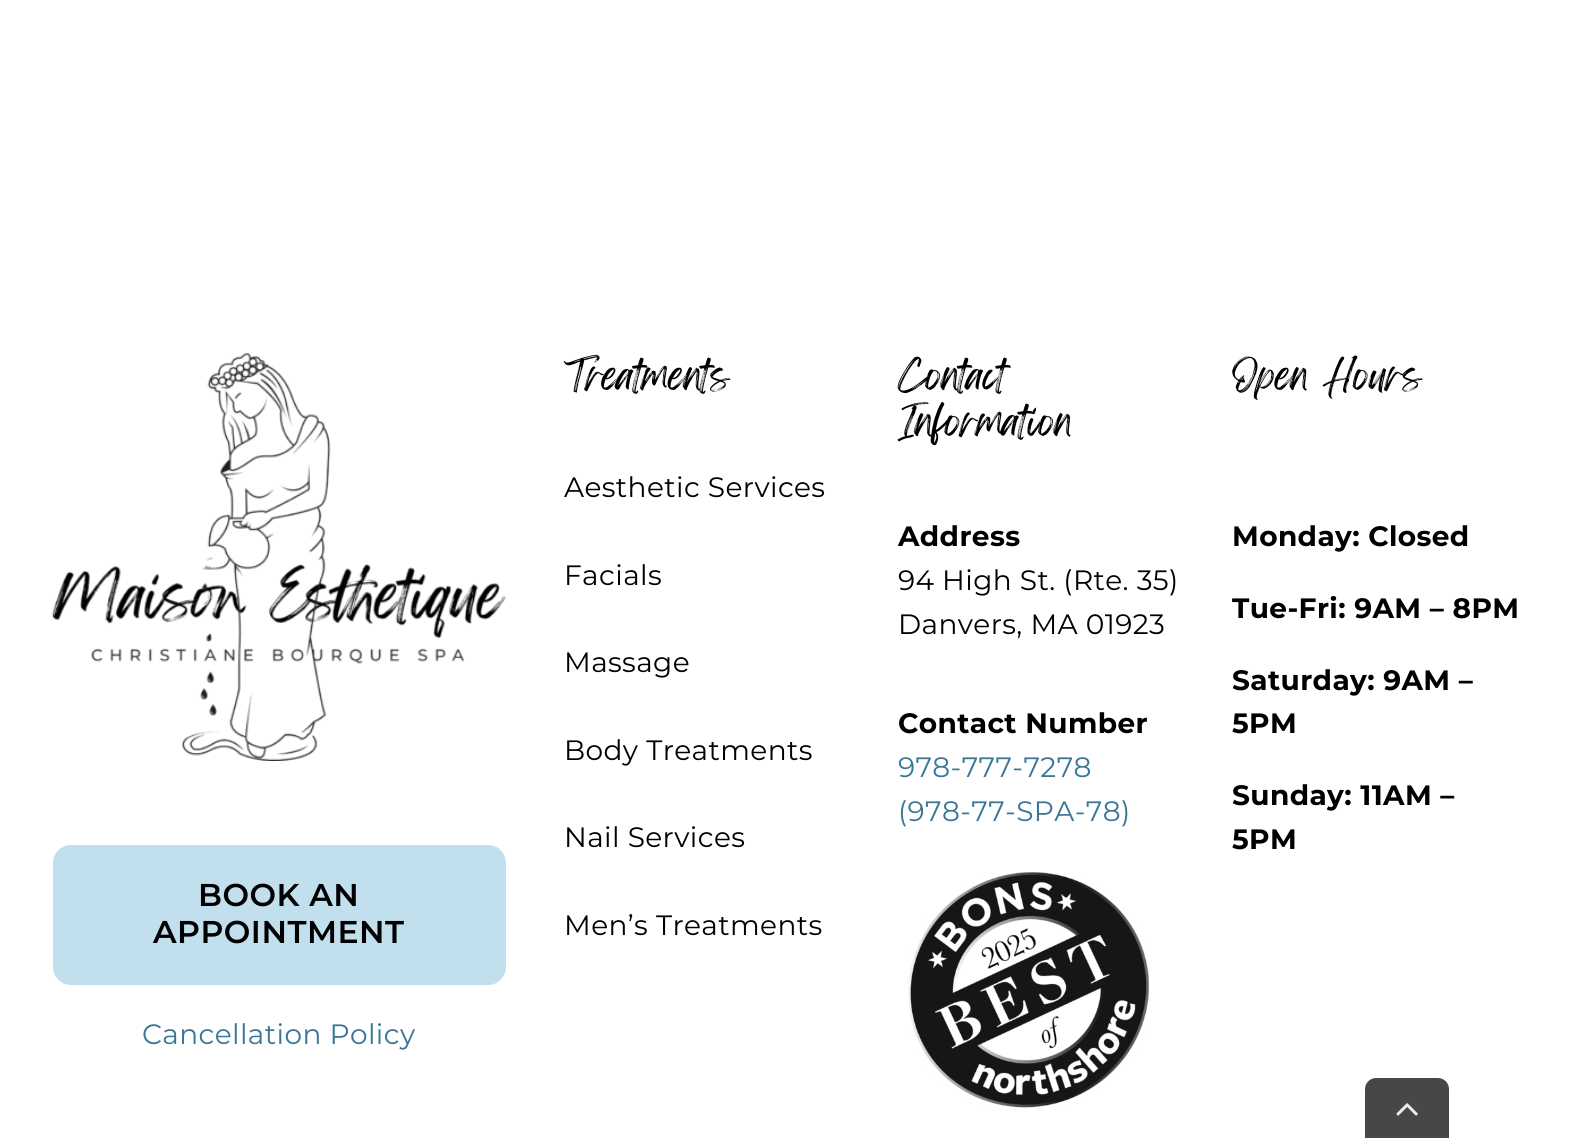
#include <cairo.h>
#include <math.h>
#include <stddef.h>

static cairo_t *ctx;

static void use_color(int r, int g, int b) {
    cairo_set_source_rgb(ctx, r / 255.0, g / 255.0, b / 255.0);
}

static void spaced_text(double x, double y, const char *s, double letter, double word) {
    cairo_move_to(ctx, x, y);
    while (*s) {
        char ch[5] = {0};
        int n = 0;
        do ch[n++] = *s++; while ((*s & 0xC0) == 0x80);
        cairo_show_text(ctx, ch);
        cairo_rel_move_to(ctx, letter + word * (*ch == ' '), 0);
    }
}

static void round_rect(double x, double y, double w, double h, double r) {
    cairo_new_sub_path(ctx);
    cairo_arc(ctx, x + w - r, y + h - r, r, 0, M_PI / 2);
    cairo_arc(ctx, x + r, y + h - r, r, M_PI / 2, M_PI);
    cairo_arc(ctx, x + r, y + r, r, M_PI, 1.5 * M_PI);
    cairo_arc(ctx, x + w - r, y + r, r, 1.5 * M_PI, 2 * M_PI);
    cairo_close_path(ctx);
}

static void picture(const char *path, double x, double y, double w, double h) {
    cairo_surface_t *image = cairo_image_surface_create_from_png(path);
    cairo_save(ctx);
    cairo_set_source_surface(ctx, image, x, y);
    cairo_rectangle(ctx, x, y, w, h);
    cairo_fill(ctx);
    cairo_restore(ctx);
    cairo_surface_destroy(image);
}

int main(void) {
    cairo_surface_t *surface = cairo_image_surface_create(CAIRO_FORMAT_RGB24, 1579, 1138);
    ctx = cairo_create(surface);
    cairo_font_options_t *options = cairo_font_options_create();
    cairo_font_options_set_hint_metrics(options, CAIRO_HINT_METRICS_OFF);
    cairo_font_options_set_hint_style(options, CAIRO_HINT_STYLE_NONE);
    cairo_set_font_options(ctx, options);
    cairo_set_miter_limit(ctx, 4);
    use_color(255, 255, 255);
    cairo_paint(ctx);
    cairo_select_font_face(ctx, "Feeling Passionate", CAIRO_FONT_SLANT_NORMAL, CAIRO_FONT_WEIGHT_NORMAL);
    cairo_set_font_size(ctx, 35);
    use_color(0, 0, 0);
    spaced_text(564, 392, "Treatments", 0.4, 0);
    cairo_select_font_face(ctx, "Montserrat", CAIRO_FONT_SLANT_NORMAL, CAIRO_FONT_WEIGHT_NORMAL);
    cairo_set_font_size(ctx, 28);
    spaced_text(564, 497, "Aesthetic Services", 0.4, 0);
    spaced_text(564, 585, "Facials", 0.4, 0);
    spaced_text(564, 672, "Massage", 0.4, 0);
    spaced_text(564, 760, "Body Treatments", 0.4, 0);
    spaced_text(564, 847, "Nail Services", 0.4, 0);
    spaced_text(564, 935, "Men’s Treatments", 0.4, 0);
    cairo_select_font_face(ctx, "Feeling Passionate", CAIRO_FONT_SLANT_NORMAL, CAIRO_FONT_WEIGHT_NORMAL);
    cairo_set_font_size(ctx, 35);
    spaced_text(898, 392, "Contact", 0.4, 0);
    spaced_text(898, 438, "Information", 0.4, 0);
    cairo_select_font_face(ctx, "Montserrat", CAIRO_FONT_SLANT_NORMAL, CAIRO_FONT_WEIGHT_BOLD);
    cairo_set_font_size(ctx, 28);
    spaced_text(898, 546, "Address", 0.4, 0);
    cairo_select_font_face(ctx, "Montserrat", CAIRO_FONT_SLANT_NORMAL, CAIRO_FONT_WEIGHT_NORMAL);
    spaced_text(898, 590, "94 High St. (Rte. 35)", 0.4, 0);
    spaced_text(898, 634, "Danvers, MA 01923", 0.4, 0);
    cairo_select_font_face(ctx, "Montserrat", CAIRO_FONT_SLANT_NORMAL, CAIRO_FONT_WEIGHT_BOLD);
    spaced_text(898, 733, "Contact Number", 0.4, 0);
    cairo_select_font_face(ctx, "Montserrat", CAIRO_FONT_SLANT_NORMAL, CAIRO_FONT_WEIGHT_NORMAL);
    use_color(58, 118, 149);
    spaced_text(898, 777, "978-777-7278", 0.4, 0);
    spaced_text(898, 821, "(978-77-SPA-78)", 0.4, 0);
    picture("img1.png", 908, 872, 241, 236);
    cairo_select_font_face(ctx, "Feeling Passionate", CAIRO_FONT_SLANT_NORMAL, CAIRO_FONT_WEIGHT_NORMAL);
    cairo_set_font_size(ctx, 35);
    use_color(0, 0, 0);
    spaced_text(1232, 392, "Open Hours", 0.4, 0);
    cairo_select_font_face(ctx, "Montserrat", CAIRO_FONT_SLANT_NORMAL, CAIRO_FONT_WEIGHT_BOLD);
    cairo_set_font_size(ctx, 28);
    spaced_text(1232, 546, "Monday: Closed", 0.4, 0);
    spaced_text(1232, 618, "Tue-Fri: 9AM – 8PM", 0.4, 0);
    spaced_text(1232, 690, "Saturday: 9AM –", 0.4, 0);
    spaced_text(1232, 733, "5PM", 0.4, 0);
    spaced_text(1232, 805, "Sunday: 11AM –", 0.4, 0);
    spaced_text(1232, 849, "5PM", 0.4, 0);
    picture("img2.png", 52, 353, 454, 408);
    use_color(194, 223, 238);
    round_rect(55, 847, 449, 136, 16);
    cairo_fill_preserve(ctx);
    cairo_set_line_width(ctx, 4);
    cairo_stroke(ctx);
    cairo_select_font_face(ctx, "Montserrat SemiBold", CAIRO_FONT_SLANT_NORMAL, CAIRO_FONT_WEIGHT_NORMAL);
    cairo_set_font_size(ctx, 31.5);
    use_color(0, 0, 0);
    spaced_text(198, 906, "BOOK AN", 0.5, 0);
    spaced_text(153, 943, "APPOINTMENT", 0.5, 0);
    cairo_select_font_face(ctx, "Montserrat", CAIRO_FONT_SLANT_NORMAL, CAIRO_FONT_WEIGHT_NORMAL);
    cairo_set_font_size(ctx, 28);
    use_color(58, 118, 149);
    spaced_text(142, 1044, "Cancellation Policy", 0.4, 0);
    use_color(71, 71, 71);
    cairo_new_path(ctx);
    cairo_move_to(ctx, 1376, 1078);
    cairo_line_to(ctx, 1438, 1078);
    cairo_curve_to(ctx, 1444, 1078, 1449, 1083, 1449, 1089);
    cairo_line_to(ctx, 1449, 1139);
    cairo_line_to(ctx, 1365, 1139);
    cairo_line_to(ctx, 1365, 1089);
    cairo_curve_to(ctx, 1365, 1083, 1370, 1078, 1376, 1078);
    cairo_close_path(ctx);
    cairo_fill(ctx);
    picture("img3.png", 1396, 1103, 22, 13);
    cairo_surface_write_to_png(surface, "result.png");
    cairo_font_options_destroy(options);
    cairo_destroy(ctx);
    cairo_surface_destroy(surface);
    return 0;
}
